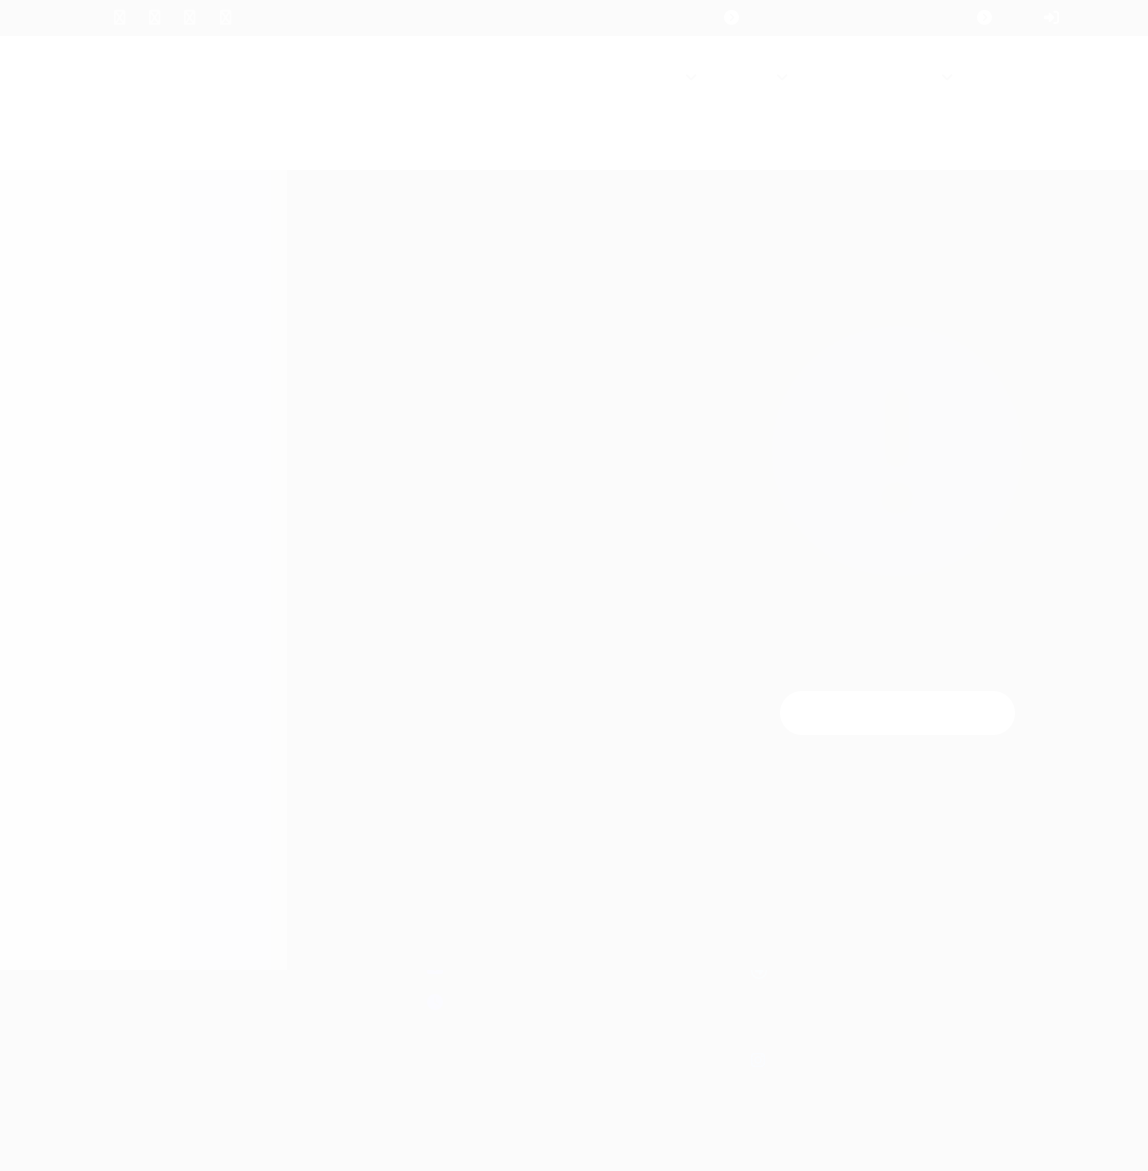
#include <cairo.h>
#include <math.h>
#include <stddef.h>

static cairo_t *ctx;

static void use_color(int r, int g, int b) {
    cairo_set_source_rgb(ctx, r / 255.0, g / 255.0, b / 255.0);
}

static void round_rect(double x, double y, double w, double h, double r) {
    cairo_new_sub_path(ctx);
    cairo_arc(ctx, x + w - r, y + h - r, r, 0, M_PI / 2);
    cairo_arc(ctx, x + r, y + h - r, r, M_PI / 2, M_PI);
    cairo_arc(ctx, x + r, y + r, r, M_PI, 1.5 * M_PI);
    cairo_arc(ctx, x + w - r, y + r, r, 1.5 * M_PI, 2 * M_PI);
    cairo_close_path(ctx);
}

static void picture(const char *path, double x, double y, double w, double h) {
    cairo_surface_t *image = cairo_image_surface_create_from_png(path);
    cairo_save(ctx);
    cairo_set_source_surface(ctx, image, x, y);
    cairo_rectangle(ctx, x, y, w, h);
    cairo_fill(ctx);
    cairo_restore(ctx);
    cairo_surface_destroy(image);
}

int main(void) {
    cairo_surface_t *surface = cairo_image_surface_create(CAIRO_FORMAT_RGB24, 1148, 1171);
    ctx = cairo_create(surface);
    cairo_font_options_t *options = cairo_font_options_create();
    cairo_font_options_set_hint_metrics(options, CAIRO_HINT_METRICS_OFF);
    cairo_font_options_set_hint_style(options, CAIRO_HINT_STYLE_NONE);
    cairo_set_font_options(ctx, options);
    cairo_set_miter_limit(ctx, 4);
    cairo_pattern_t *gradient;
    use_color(251, 251, 251);
    cairo_paint(ctx);
    use_color(255, 255, 255);
    cairo_rectangle(ctx, 0, 36, 1148, 134);
    cairo_fill(ctx);
    picture("img1.png", 114, 9, 12, 16);
    picture("img1.png", 149, 9, 12, 16);
    picture("img1.png", 184, 9, 12, 16);
    picture("img1.png", 220, 9, 12, 16);
    picture("img2.png", 724, 9, 15, 16);
    picture("img2.png", 977, 9, 15, 16);
    picture("img3.png", 1044, 10, 15, 14);
    picture("img4.png", 685, 74, 12, 7);
    picture("img4.png", 776, 74, 12, 7);
    picture("img4.png", 941, 74, 12, 7);
    gradient = cairo_pattern_create_linear(0, 570, 1148, 570);
    cairo_pattern_add_color_stop_rgba(gradient, 0, 0.996, 0.996, 0.996, 1);
    cairo_pattern_add_color_stop_rgba(gradient, 1, 0.984, 0.984, 0.988, 1);
    cairo_set_source(ctx, gradient);
    cairo_pattern_destroy(gradient);
    cairo_rectangle(ctx, 0, 170, 287, 800);
    cairo_fill(ctx);
    picture("img5.png", 772, 326, 250, 251);
    use_color(255, 255, 255);
    round_rect(780, 691, 235, 44, 22);
    cairo_fill(ctx);
    picture("img6.png", 427, 970, 16, 4);
    picture("img7.png", 427, 994, 16, 16);
    picture("img8.png", 751, 970, 16, 9);
    picture("img9.png", 751, 1053, 14, 14);
    cairo_surface_write_to_png(surface, "result.png");
    cairo_font_options_destroy(options);
    cairo_destroy(ctx);
    cairo_surface_destroy(surface);
    return 0;
}
